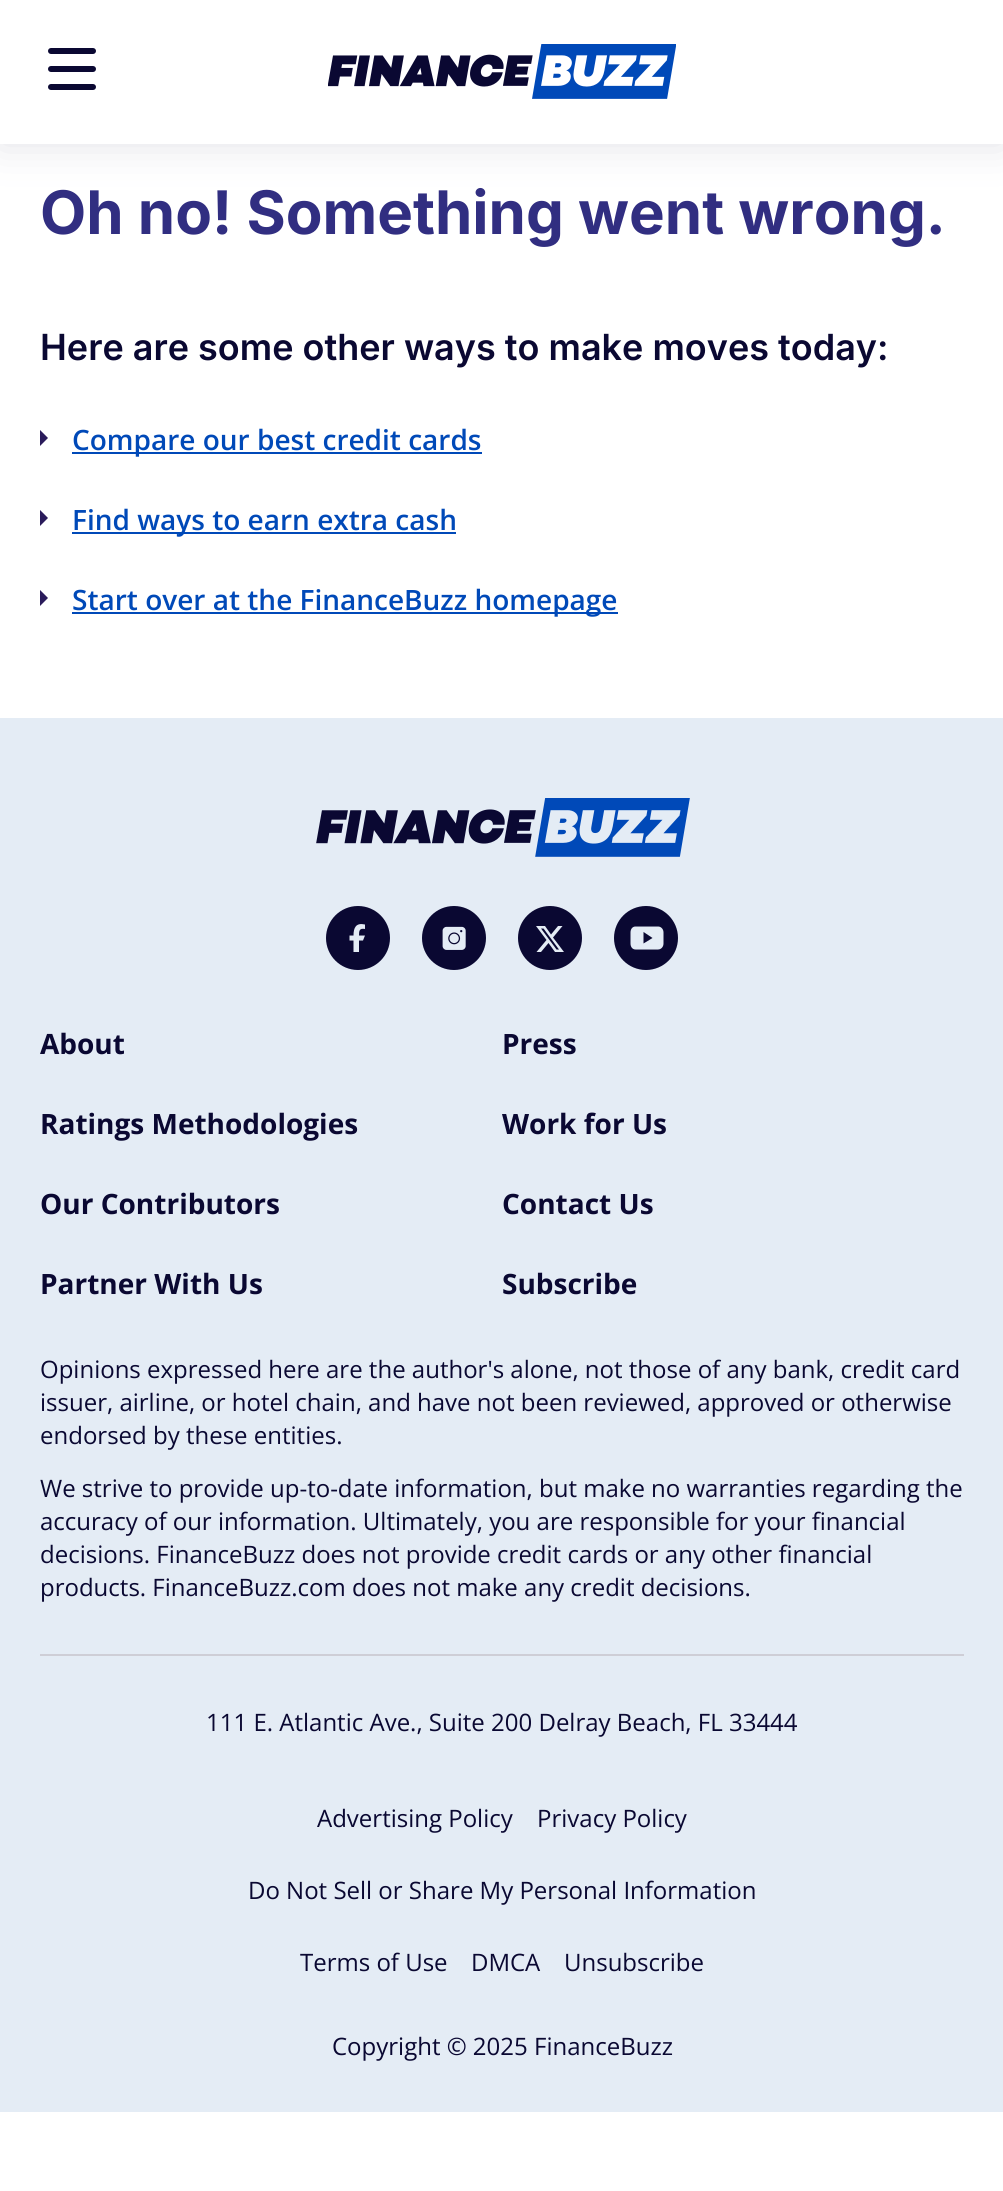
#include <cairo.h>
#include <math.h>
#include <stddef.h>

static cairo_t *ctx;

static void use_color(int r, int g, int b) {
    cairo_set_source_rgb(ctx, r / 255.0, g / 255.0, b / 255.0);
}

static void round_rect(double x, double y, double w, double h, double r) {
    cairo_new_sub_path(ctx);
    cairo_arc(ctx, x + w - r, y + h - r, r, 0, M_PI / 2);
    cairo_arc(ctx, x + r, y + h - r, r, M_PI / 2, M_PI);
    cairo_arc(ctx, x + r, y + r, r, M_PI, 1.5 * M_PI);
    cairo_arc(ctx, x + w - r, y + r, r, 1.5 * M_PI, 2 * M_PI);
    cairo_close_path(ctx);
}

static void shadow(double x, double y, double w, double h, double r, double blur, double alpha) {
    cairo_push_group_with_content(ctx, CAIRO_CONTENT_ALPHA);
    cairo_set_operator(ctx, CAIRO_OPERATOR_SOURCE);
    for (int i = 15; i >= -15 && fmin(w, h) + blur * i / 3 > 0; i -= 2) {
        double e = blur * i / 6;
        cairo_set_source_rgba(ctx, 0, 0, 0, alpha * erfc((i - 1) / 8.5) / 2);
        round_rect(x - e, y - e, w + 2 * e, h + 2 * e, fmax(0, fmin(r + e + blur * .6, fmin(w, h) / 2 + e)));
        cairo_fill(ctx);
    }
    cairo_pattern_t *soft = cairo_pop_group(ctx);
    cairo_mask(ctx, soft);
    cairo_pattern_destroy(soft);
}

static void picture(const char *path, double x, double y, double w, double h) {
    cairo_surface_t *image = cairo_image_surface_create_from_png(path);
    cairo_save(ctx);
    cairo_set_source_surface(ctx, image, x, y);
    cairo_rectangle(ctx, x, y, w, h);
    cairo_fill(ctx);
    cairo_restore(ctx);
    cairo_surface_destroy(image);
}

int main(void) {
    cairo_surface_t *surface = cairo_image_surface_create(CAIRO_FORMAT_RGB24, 1003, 2191);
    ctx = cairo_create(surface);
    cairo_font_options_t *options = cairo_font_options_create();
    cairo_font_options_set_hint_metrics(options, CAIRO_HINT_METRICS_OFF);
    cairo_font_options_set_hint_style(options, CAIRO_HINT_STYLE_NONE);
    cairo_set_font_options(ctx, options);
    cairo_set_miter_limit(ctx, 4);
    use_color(255, 255, 255);
    cairo_paint(ctx);
    use_color(206, 206, 214);
    shadow(0, 0, 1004, 144, 0, 20, 0.6);
    use_color(255, 255, 255);
    cairo_rectangle(ctx, 0, 0, 1003, 144);
    cairo_fill(ctx);
    use_color(10, 8, 50);
    round_rect(48, 48, 48, 6, 3);
    cairo_fill(ctx);
    round_rect(48, 66, 48, 6, 3);
    cairo_fill(ctx);
    round_rect(48, 84, 48, 6, 3);
    cairo_fill(ctx);
    picture("img1.png", 328, 44, 348, 55);
    cairo_select_font_face(ctx, "Inter", CAIRO_FONT_SLANT_NORMAL, CAIRO_FONT_WEIGHT_BOLD);
    cairo_set_font_size(ctx, 60);
    use_color(49, 46, 129);
    cairo_move_to(ctx, 40, 234);
    cairo_show_text(ctx, "Oh no! Something went wrong.");
    cairo_select_font_face(ctx, "Inter SemiBold", CAIRO_FONT_SLANT_NORMAL, CAIRO_FONT_WEIGHT_NORMAL);
    cairo_set_font_size(ctx, 36);
    use_color(10, 8, 50);
    cairo_move_to(ctx, 40, 360);
    cairo_show_text(ctx, "Here are some other ways to make moves today:");
    use_color(42, 27, 91);
    cairo_new_path(ctx);
    cairo_move_to(ctx, 40, 446);
    cairo_line_to(ctx, 40, 430);
    cairo_line_to(ctx, 48, 438);
    cairo_close_path(ctx);
    cairo_fill(ctx);
    use_color(0, 73, 184);
    cairo_rectangle(ctx, 72, 452, 410, 2);
    cairo_fill(ctx);
    cairo_select_font_face(ctx, "Open Sans SemiBold", CAIRO_FONT_SLANT_NORMAL, CAIRO_FONT_WEIGHT_NORMAL);
    cairo_set_font_size(ctx, 28);
    cairo_move_to(ctx, 72, 450);
    cairo_show_text(ctx, "Compare our best credit cards");
    use_color(42, 27, 91);
    cairo_new_path(ctx);
    cairo_move_to(ctx, 40, 526);
    cairo_line_to(ctx, 40, 510);
    cairo_line_to(ctx, 48, 518);
    cairo_close_path(ctx);
    cairo_fill(ctx);
    use_color(0, 73, 184);
    cairo_rectangle(ctx, 72, 532, 384, 2);
    cairo_fill(ctx);
    cairo_move_to(ctx, 72, 530);
    cairo_show_text(ctx, "Find ways to earn extra cash");
    use_color(42, 27, 91);
    cairo_new_path(ctx);
    cairo_move_to(ctx, 40, 606);
    cairo_line_to(ctx, 40, 590);
    cairo_line_to(ctx, 48, 598);
    cairo_close_path(ctx);
    cairo_fill(ctx);
    use_color(0, 73, 184);
    cairo_rectangle(ctx, 72, 612, 546, 2);
    cairo_fill(ctx);
    cairo_move_to(ctx, 72, 610);
    cairo_show_text(ctx, "Start over at the FinanceBuzz homepage");
    use_color(228, 236, 245);
    cairo_rectangle(ctx, 0, 718, 1003, 1394);
    cairo_fill(ctx);
    picture("img2.png", 316, 798, 374, 59);
    use_color(10, 8, 50);
    cairo_arc(ctx, 358, 938, 32, 0, 2 * M_PI);
    cairo_fill(ctx);
    use_color(228, 236, 245);
    cairo_new_path(ctx);
    cairo_move_to(ctx, 359, 940.5);
    cairo_line_to(ctx, 359, 952);
    cairo_line_to(ctx, 353.5, 952);
    cairo_line_to(ctx, 353.5, 940.5);
    cairo_line_to(ctx, 349.5, 940.5);
    cairo_line_to(ctx, 349.5, 935.5);
    cairo_line_to(ctx, 353.5, 935.5);
    cairo_curve_to(ctx, 353.5, 927.5, 356, 922.5, 365, 924.5);
    cairo_line_to(ctx, 365, 929);
    cairo_curve_to(ctx, 359.5, 928, 359, 930.5, 359, 935.5);
    cairo_line_to(ctx, 365, 935.5);
    cairo_line_to(ctx, 363, 940.5);
    cairo_close_path(ctx);
    cairo_fill(ctx);
    picture("img3.png", 422, 906, 64, 64);
    use_color(10, 8, 50);
    cairo_arc(ctx, 550, 938, 32, 0, 2 * M_PI);
    cairo_fill(ctx);
    use_color(228, 236, 245);
    cairo_set_fill_rule(ctx, CAIRO_FILL_RULE_EVEN_ODD);
    cairo_new_path(ctx);
    cairo_move_to(ctx, 545, 926);
    cairo_line_to(ctx, 536, 926);
    cairo_line_to(ctx, 546.5, 940);
    cairo_line_to(ctx, 536.5, 952);
    cairo_line_to(ctx, 541, 952);
    cairo_line_to(ctx, 548.5, 943);
    cairo_line_to(ctx, 555, 952);
    cairo_line_to(ctx, 564, 952);
    cairo_line_to(ctx, 553, 937.5);
    cairo_line_to(ctx, 562.5, 926);
    cairo_line_to(ctx, 558, 926);
    cairo_line_to(ctx, 551, 934.5);
    cairo_close_path(ctx);
    cairo_move_to(ctx, 541, 928.5);
    cairo_line_to(ctx, 543.5, 928.5);
    cairo_line_to(ctx, 559, 949.5);
    cairo_line_to(ctx, 556.5, 949.5);
    cairo_close_path(ctx);
    cairo_fill(ctx);
    use_color(10, 8, 50);
    cairo_arc(ctx, 646, 938, 32, 0, 2 * M_PI);
    cairo_fill(ctx);
    use_color(228, 236, 245);
    cairo_set_fill_rule(ctx, CAIRO_FILL_RULE_WINDING);
    cairo_new_path(ctx);
    cairo_move_to(ctx, 658, 949.5);
    cairo_line_to(ctx, 635.5, 949.5);
    cairo_curve_to(ctx, 632.5, 949.5, 630.5, 947, 630.5, 943.5);
    cairo_line_to(ctx, 630.5, 932.5);
    cairo_curve_to(ctx, 630.5, 929, 632.5, 926.5, 635.5, 926.5);
    cairo_line_to(ctx, 658, 926.5);
    cairo_curve_to(ctx, 661, 926.5, 663.5, 929, 663.5, 932.5);
    cairo_line_to(ctx, 663.5, 943.5);
    cairo_curve_to(ctx, 663.5, 947, 661, 949.5, 658, 949.5);
    cairo_close_path(ctx);
    cairo_fill(ctx);
    use_color(10, 8, 50);
    cairo_new_path(ctx);
    cairo_move_to(ctx, 652.5, 938);
    cairo_line_to(ctx, 643.5, 932);
    cairo_line_to(ctx, 643.5, 943.5);
    cairo_close_path(ctx);
    cairo_fill(ctx);
    cairo_select_font_face(ctx, "Open Sans", CAIRO_FONT_SLANT_NORMAL, CAIRO_FONT_WEIGHT_BOLD);
    cairo_move_to(ctx, 40, 1054);
    cairo_show_text(ctx, "About");
    cairo_move_to(ctx, 502, 1054);
    cairo_show_text(ctx, "Press");
    cairo_move_to(ctx, 40, 1134);
    cairo_show_text(ctx, "Ratings Methodologies");
    cairo_move_to(ctx, 502, 1134);
    cairo_show_text(ctx, "Work for Us");
    cairo_move_to(ctx, 40, 1214);
    cairo_show_text(ctx, "Our Contributors");
    cairo_move_to(ctx, 502, 1214);
    cairo_show_text(ctx, "Contact Us");
    cairo_move_to(ctx, 40, 1294);
    cairo_show_text(ctx, "Partner With Us");
    cairo_move_to(ctx, 502, 1294);
    cairo_show_text(ctx, "Subscribe");
    cairo_select_font_face(ctx, "Open Sans", CAIRO_FONT_SLANT_NORMAL, CAIRO_FONT_WEIGHT_NORMAL);
    cairo_set_font_size(ctx, 24);
    cairo_move_to(ctx, 40, 1378);
    cairo_show_text(ctx, "Opinions expressed here are the author's alone, not those of any bank, credit card");
    cairo_move_to(ctx, 40, 1411);
    cairo_show_text(ctx, "issuer, airline, or hotel chain, and have not been reviewed, approved or otherwise");
    cairo_move_to(ctx, 40, 1444);
    cairo_show_text(ctx, "endorsed by these entities.");
    cairo_move_to(ctx, 40, 1497);
    cairo_show_text(ctx, "We strive to provide up-to-date information, but make no warranties regarding the");
    cairo_move_to(ctx, 40, 1530);
    cairo_show_text(ctx, "accuracy of our information. Ultimately, you are responsible for your financial");
    cairo_move_to(ctx, 40, 1563);
    cairo_show_text(ctx, "decisions. FinanceBuzz does not provide credit cards or any other financial");
    cairo_move_to(ctx, 40, 1596);
    cairo_show_text(ctx, "products. FinanceBuzz.com does not make any credit decisions.");
    use_color(206, 206, 214);
    cairo_rectangle(ctx, 40, 1654, 924, 2);
    cairo_fill(ctx);
    use_color(10, 8, 50);
    cairo_move_to(ctx, 206, 1731);
    cairo_show_text(ctx, "111 E. Atlantic Ave., Suite 200 Delray Beach, FL 33444");
    cairo_move_to(ctx, 317, 1827);
    cairo_show_text(ctx, "Advertising Policy");
    cairo_move_to(ctx, 537, 1827);
    cairo_show_text(ctx, "Privacy Policy");
    cairo_move_to(ctx, 248, 1899);
    cairo_show_text(ctx, "Do Not Sell or Share My Personal Information");
    cairo_move_to(ctx, 300, 1971);
    cairo_show_text(ctx, "Terms of Use");
    cairo_move_to(ctx, 471, 1971);
    cairo_show_text(ctx, "DMCA");
    cairo_move_to(ctx, 564, 1971);
    cairo_show_text(ctx, "Unsubscribe");
    cairo_move_to(ctx, 332, 2055);
    cairo_show_text(ctx, "Copyright © 2025 FinanceBuzz");
    cairo_surface_write_to_png(surface, "result.png");
    cairo_font_options_destroy(options);
    cairo_destroy(ctx);
    cairo_surface_destroy(surface);
    return 0;
}
